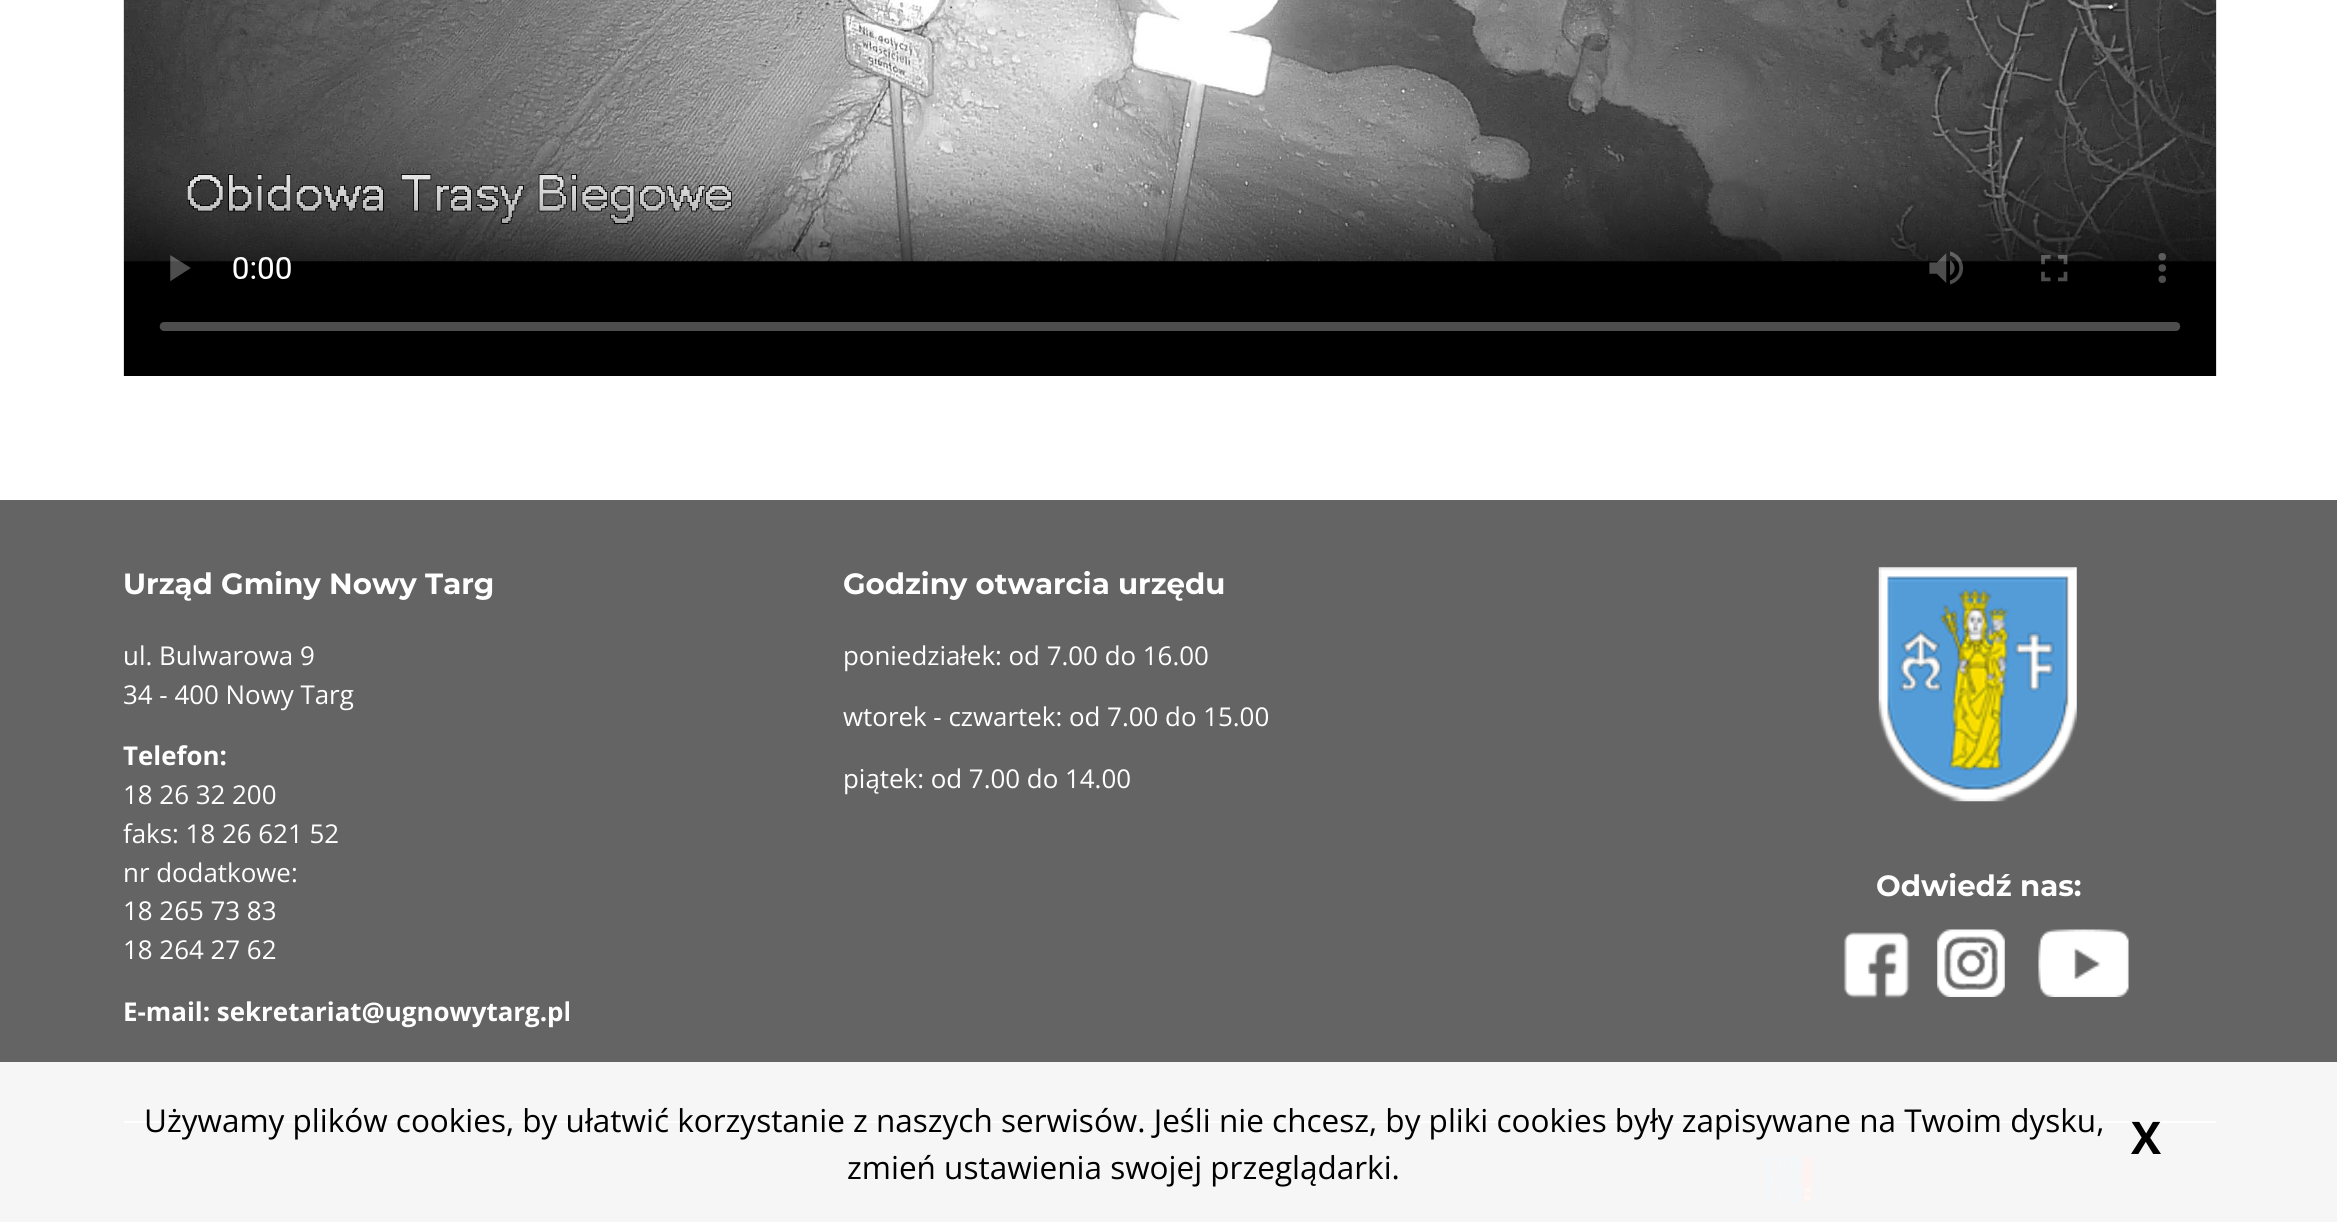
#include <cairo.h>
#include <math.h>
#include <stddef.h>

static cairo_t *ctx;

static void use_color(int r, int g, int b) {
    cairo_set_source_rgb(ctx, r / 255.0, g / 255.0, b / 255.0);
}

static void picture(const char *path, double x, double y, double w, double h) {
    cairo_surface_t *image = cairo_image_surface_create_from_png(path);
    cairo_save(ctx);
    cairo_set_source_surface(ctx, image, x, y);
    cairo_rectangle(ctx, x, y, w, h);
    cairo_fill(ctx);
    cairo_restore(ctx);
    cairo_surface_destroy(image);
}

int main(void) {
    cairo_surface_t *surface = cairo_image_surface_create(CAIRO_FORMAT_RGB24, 2337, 1222);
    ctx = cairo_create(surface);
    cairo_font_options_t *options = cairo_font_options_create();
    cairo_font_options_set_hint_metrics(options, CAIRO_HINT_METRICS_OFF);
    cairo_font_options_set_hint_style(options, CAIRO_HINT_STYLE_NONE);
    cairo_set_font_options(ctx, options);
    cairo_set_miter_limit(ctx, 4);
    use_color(255, 255, 255);
    cairo_paint(ctx);
    picture("img1.png", 123, 0, 2094, 376);
    use_color(100, 100, 100);
    cairo_rectangle(ctx, 0, 500, 2337, 562);
    cairo_fill(ctx);
    use_color(246, 246, 246);
    cairo_rectangle(ctx, 0, 1062, 2337, 160);
    cairo_fill(ctx);
    cairo_select_font_face(ctx, "Montserrat", CAIRO_FONT_SLANT_NORMAL, CAIRO_FONT_WEIGHT_BOLD);
    cairo_set_font_size(ctx, 29.25);
    use_color(255, 255, 255);
    cairo_move_to(ctx, 123, 594);
    cairo_show_text(ctx, "Urząd Gminy Nowy Targ");
    cairo_select_font_face(ctx, "Open Sans", CAIRO_FONT_SLANT_NORMAL, CAIRO_FONT_WEIGHT_NORMAL);
    cairo_set_font_size(ctx, 25.9);
    cairo_move_to(ctx, 123, 665);
    cairo_show_text(ctx, "ul. Bulwarowa 9");
    cairo_move_to(ctx, 123, 704);
    cairo_show_text(ctx, "34 - 400 Nowy Targ");
    cairo_select_font_face(ctx, "Open Sans", CAIRO_FONT_SLANT_NORMAL, CAIRO_FONT_WEIGHT_BOLD);
    cairo_move_to(ctx, 123, 765);
    cairo_show_text(ctx, "Telefon:");
    cairo_select_font_face(ctx, "Open Sans", CAIRO_FONT_SLANT_NORMAL, CAIRO_FONT_WEIGHT_NORMAL);
    cairo_move_to(ctx, 123, 804);
    cairo_show_text(ctx, "18 26 32 200");
    cairo_move_to(ctx, 123, 843);
    cairo_show_text(ctx, "faks: 18 26 621 52");
    cairo_move_to(ctx, 123, 882);
    cairo_show_text(ctx, "nr dodatkowe:");
    cairo_move_to(ctx, 123, 920);
    cairo_show_text(ctx, "18 265 73 83");
    cairo_move_to(ctx, 123, 959);
    cairo_show_text(ctx, "18 264 27 62");
    cairo_select_font_face(ctx, "Open Sans", CAIRO_FONT_SLANT_NORMAL, CAIRO_FONT_WEIGHT_BOLD);
    cairo_move_to(ctx, 123, 1021);
    cairo_show_text(ctx, "E-mail: sekretariat@ugnowytarg.pl");
    cairo_select_font_face(ctx, "Montserrat", CAIRO_FONT_SLANT_NORMAL, CAIRO_FONT_WEIGHT_BOLD);
    cairo_set_font_size(ctx, 29.25);
    cairo_move_to(ctx, 843, 594);
    cairo_show_text(ctx, "Godziny otwarcia urzędu");
    cairo_select_font_face(ctx, "Open Sans", CAIRO_FONT_SLANT_NORMAL, CAIRO_FONT_WEIGHT_NORMAL);
    cairo_set_font_size(ctx, 25.9);
    cairo_move_to(ctx, 843, 665);
    cairo_show_text(ctx, "poniedziałek: od 7.00 do 16.00");
    cairo_move_to(ctx, 843, 726);
    cairo_show_text(ctx, "wtorek - czwartek: od 7.00 do 15.00");
    cairo_move_to(ctx, 843, 788);
    cairo_show_text(ctx, "piątek: od 7.00 do 14.00");
    picture("img2.png", 1878, 567, 199, 235);
    cairo_select_font_face(ctx, "Montserrat", CAIRO_FONT_SLANT_NORMAL, CAIRO_FONT_WEIGHT_BOLD);
    cairo_set_font_size(ctx, 29.25);
    cairo_move_to(ctx, 1876, 896);
    cairo_show_text(ctx, "Odwiedź nas:");
    picture("img3.png", 1843, 932, 67, 66);
    picture("img4.png", 1937, 929, 68, 68);
    picture("img5.png", 2038, 929, 91, 68);
    use_color(254, 254, 254);
    cairo_rectangle(ctx, 124, 1121, 2092, 2);
    cairo_fill(ctx);
    picture("img6.png", 1768, 1156, 44, 46);
    cairo_select_font_face(ctx, "Open Sans", CAIRO_FONT_SLANT_NORMAL, CAIRO_FONT_WEIGHT_NORMAL);
    cairo_set_font_size(ctx, 31.5);
    use_color(0, 0, 0);
    cairo_move_to(ctx, 144, 1132);
    cairo_show_text(ctx, "Używamy plików cookies, by ułatwić korzystanie z naszych serwisów. Jeśli nie chcesz, by pliki cookies były zapisywane na Twoim dysku,");
    cairo_select_font_face(ctx, "Open Sans", CAIRO_FONT_SLANT_NORMAL, CAIRO_FONT_WEIGHT_BOLD);
    cairo_set_font_size(ctx, 45);
    cairo_move_to(ctx, 2131, 1154);
    cairo_show_text(ctx, "X");
    cairo_select_font_face(ctx, "Open Sans", CAIRO_FONT_SLANT_NORMAL, CAIRO_FONT_WEIGHT_NORMAL);
    cairo_set_font_size(ctx, 31.5);
    cairo_move_to(ctx, 847, 1179);
    cairo_show_text(ctx, "zmień ustawienia swojej przeglądarki.");
    cairo_surface_write_to_png(surface, "result.png");
    cairo_font_options_destroy(options);
    cairo_destroy(ctx);
    cairo_surface_destroy(surface);
    return 0;
}
